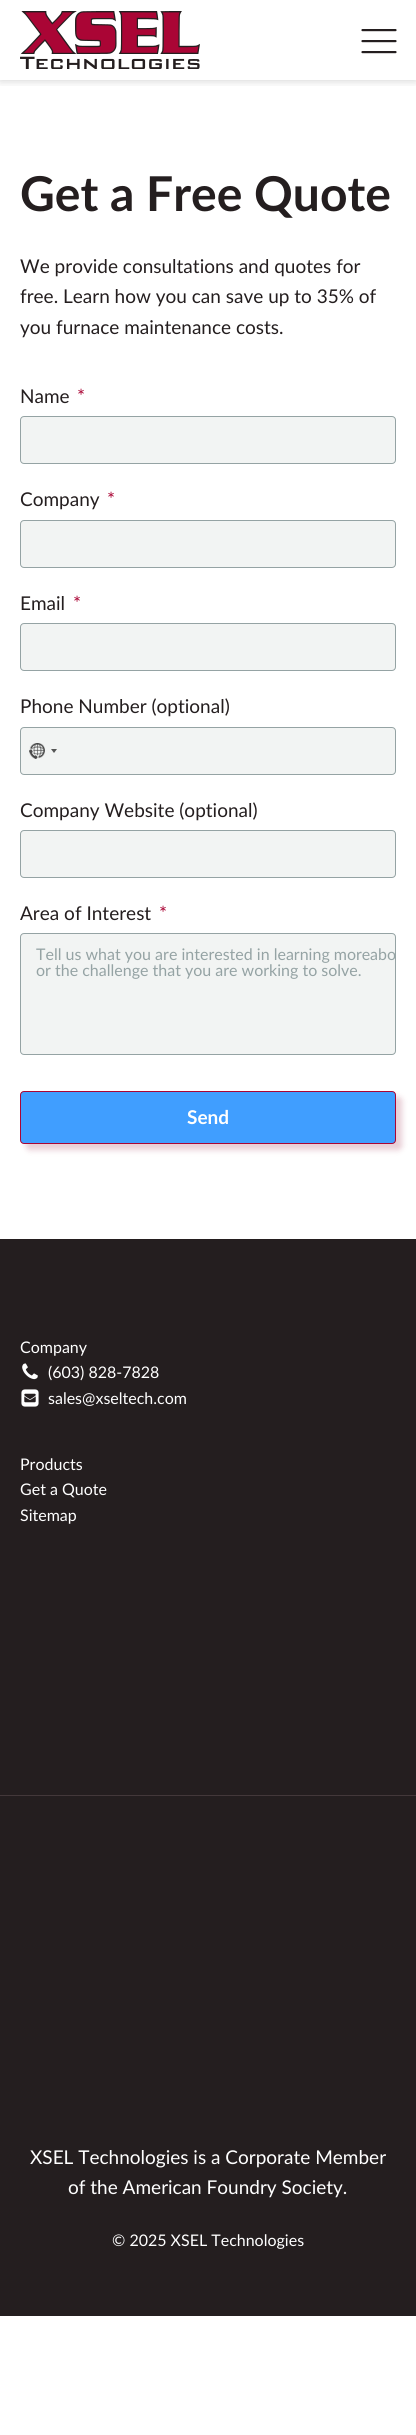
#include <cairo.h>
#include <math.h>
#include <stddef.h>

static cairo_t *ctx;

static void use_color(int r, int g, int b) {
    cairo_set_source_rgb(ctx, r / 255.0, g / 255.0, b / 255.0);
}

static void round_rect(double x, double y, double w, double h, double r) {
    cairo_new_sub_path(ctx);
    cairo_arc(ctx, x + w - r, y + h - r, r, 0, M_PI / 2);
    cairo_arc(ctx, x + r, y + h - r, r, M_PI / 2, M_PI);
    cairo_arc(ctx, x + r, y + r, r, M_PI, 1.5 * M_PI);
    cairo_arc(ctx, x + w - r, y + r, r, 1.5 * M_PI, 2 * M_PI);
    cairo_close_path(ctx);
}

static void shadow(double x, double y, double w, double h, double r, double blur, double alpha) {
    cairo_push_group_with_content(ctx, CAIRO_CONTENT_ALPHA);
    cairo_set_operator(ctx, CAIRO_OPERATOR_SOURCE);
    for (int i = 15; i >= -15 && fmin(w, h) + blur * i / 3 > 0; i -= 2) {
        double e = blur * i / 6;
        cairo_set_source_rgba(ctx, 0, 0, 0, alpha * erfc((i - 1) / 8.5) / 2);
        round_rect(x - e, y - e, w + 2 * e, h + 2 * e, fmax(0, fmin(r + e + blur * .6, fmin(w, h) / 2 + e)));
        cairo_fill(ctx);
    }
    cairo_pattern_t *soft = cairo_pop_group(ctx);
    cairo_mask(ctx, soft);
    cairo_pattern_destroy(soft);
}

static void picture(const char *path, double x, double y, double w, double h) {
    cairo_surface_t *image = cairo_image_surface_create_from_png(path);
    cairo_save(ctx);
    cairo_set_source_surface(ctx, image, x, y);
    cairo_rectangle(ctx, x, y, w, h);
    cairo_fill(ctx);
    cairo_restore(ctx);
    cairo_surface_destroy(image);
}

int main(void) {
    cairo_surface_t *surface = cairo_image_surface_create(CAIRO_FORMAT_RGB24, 416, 2435);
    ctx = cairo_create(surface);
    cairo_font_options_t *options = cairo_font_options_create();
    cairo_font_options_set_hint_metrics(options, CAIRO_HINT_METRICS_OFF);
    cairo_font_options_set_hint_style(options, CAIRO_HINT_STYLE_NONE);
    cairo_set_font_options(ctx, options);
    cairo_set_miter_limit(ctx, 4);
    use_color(255, 255, 255);
    cairo_paint(ctx);
    cairo_save(ctx);
    cairo_rectangle(ctx, 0, 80, 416, 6);
    cairo_clip(ctx);
    use_color(0, 0, 0);
    shadow(0, 0, 416, 80, 0, 5, 0.2);
    cairo_restore(ctx);
    picture("img1.png", 20, 11, 180, 58);
    picture("img2.png", 361, 29, 36, 25);
    cairo_select_font_face(ctx, "Lato", CAIRO_FONT_SLANT_NORMAL, CAIRO_FONT_WEIGHT_BOLD);
    cairo_set_font_size(ctx, 48);
    use_color(36, 30, 31);
    cairo_move_to(ctx, 20, 211);
    cairo_show_text(ctx, "Get a Free Quote");
    cairo_select_font_face(ctx, "Lato", CAIRO_FONT_SLANT_NORMAL, CAIRO_FONT_WEIGHT_NORMAL);
    cairo_set_font_size(ctx, 19);
    cairo_move_to(ctx, 20, 273);
    cairo_show_text(ctx, "We provide consultations and quotes for");
    cairo_move_to(ctx, 20, 303);
    cairo_show_text(ctx, "free. Learn how you can save up to 35% of");
    cairo_move_to(ctx, 20, 334);
    cairo_show_text(ctx, "you furnace maintenance costs.");
    cairo_move_to(ctx, 20, 403);
    cairo_show_text(ctx, "Name");
    use_color(170, 5, 53);
    cairo_move_to(ctx, 77, 403);
    cairo_show_text(ctx, "*");
    use_color(242, 244, 243);
    round_rect(20.5, 416.5, 375, 47, 3.5);
    cairo_fill_preserve(ctx);
    use_color(149, 163, 164);
    cairo_set_line_width(ctx, 1);
    cairo_stroke(ctx);
    use_color(36, 30, 31);
    cairo_move_to(ctx, 20, 506);
    cairo_show_text(ctx, "Company");
    use_color(170, 5, 53);
    cairo_move_to(ctx, 107, 506);
    cairo_show_text(ctx, "*");
    use_color(242, 244, 243);
    round_rect(20.5, 520.5, 375, 47, 3.5);
    cairo_fill_preserve(ctx);
    use_color(149, 163, 164);
    cairo_stroke(ctx);
    use_color(36, 30, 31);
    cairo_move_to(ctx, 20, 610);
    cairo_show_text(ctx, "Email");
    use_color(170, 5, 53);
    cairo_move_to(ctx, 73, 610);
    cairo_show_text(ctx, "*");
    use_color(242, 244, 243);
    round_rect(20.5, 623.5, 375, 47, 3.5);
    cairo_fill_preserve(ctx);
    use_color(149, 163, 164);
    cairo_stroke(ctx);
    use_color(36, 30, 31);
    cairo_move_to(ctx, 20, 713);
    cairo_show_text(ctx, "Phone Number (optional)");
    use_color(242, 244, 243);
    round_rect(20.5, 727.5, 375, 47, 3.5);
    cairo_fill_preserve(ctx);
    use_color(149, 163, 164);
    cairo_stroke(ctx);
    picture("img3.png", 29, 743, 16, 16);
    use_color(85, 85, 85);
    cairo_new_path(ctx);
    cairo_move_to(ctx, 51, 749);
    cairo_line_to(ctx, 57, 749);
    cairo_line_to(ctx, 54, 753);
    cairo_close_path(ctx);
    cairo_fill(ctx);
    use_color(36, 30, 31);
    cairo_move_to(ctx, 20, 817);
    cairo_show_text(ctx, "Company Website (optional)");
    use_color(242, 244, 243);
    round_rect(20.5, 830.5, 375, 47, 3.5);
    cairo_fill_preserve(ctx);
    use_color(149, 163, 164);
    cairo_stroke(ctx);
    use_color(36, 30, 31);
    cairo_move_to(ctx, 20, 920);
    cairo_show_text(ctx, "Area of Interest");
    use_color(170, 5, 53);
    cairo_move_to(ctx, 159, 920);
    cairo_show_text(ctx, "*");
    use_color(242, 244, 243);
    round_rect(20.5, 933.5, 375, 121, 3.5);
    cairo_fill_preserve(ctx);
    use_color(149, 163, 164);
    cairo_stroke(ctx);
    cairo_set_font_size(ctx, 16);
    cairo_move_to(ctx, 36, 960);
    cairo_show_text(ctx, "Tell us what you are interested in learning more");
    cairo_save(ctx);
    round_rect(21, 934, 374, 120, 3);
    cairo_clip(ctx);
    cairo_move_to(ctx, 370, 960);
    cairo_show_text(ctx, "abo");
    cairo_restore(ctx);
    cairo_move_to(ctx, 36, 976);
    cairo_show_text(ctx, "or the challenge that you are working to solve.");
    use_color(139, 4, 42);
    shadow(26, 1097, 376, 53, 4, 3, 0.2);
    use_color(64, 158, 255);
    round_rect(20.5, 1091.5, 375, 52, 3.5);
    cairo_fill_preserve(ctx);
    use_color(170, 5, 53);
    cairo_stroke(ctx);
    cairo_select_font_face(ctx, "Lato", CAIRO_FONT_SLANT_NORMAL, CAIRO_FONT_WEIGHT_BOLD);
    cairo_set_font_size(ctx, 19);
    use_color(255, 255, 255);
    cairo_move_to(ctx, 187, 1124);
    cairo_show_text(ctx, "Send");
    use_color(36, 30, 31);
    cairo_rectangle(ctx, 0, 1239, 416, 556);
    cairo_fill(ctx);
    use_color(67, 56, 58);
    cairo_rectangle(ctx, 0, 1795, 416, 1);
    cairo_fill(ctx);
    cairo_select_font_face(ctx, "Lato", CAIRO_FONT_SLANT_NORMAL, CAIRO_FONT_WEIGHT_NORMAL);
    cairo_set_font_size(ctx, 16);
    use_color(255, 255, 255);
    cairo_move_to(ctx, 20, 1353);
    cairo_show_text(ctx, "Company");
    picture("img4.png", 22, 1363, 16, 17);
    cairo_move_to(ctx, 48, 1378);
    cairo_show_text(ctx, "(603) 828-7828");
    picture("img5.png", 21, 1389, 18, 18);
    cairo_move_to(ctx, 48, 1404);
    cairo_show_text(ctx, "sales@xseltech.com");
    cairo_move_to(ctx, 20, 1470);
    cairo_show_text(ctx, "Products");
    cairo_move_to(ctx, 20, 1495);
    cairo_show_text(ctx, "Get a Quote");
    cairo_move_to(ctx, 20, 1521);
    cairo_show_text(ctx, "Sitemap");
    use_color(36, 30, 31);
    cairo_rectangle(ctx, 0, 1796, 416, 520);
    cairo_fill(ctx);
    cairo_set_font_size(ctx, 19);
    use_color(255, 255, 255);
    cairo_move_to(ctx, 30, 2164);
    cairo_show_text(ctx, "XSEL Technologies is a Corporate Member");
    cairo_move_to(ctx, 68, 2194);
    cairo_show_text(ctx, "of the American Foundry Society.");
    cairo_set_font_size(ctx, 16);
    cairo_move_to(ctx, 112, 2246);
    cairo_show_text(ctx, "© 2025 XSEL Technologies");
    cairo_surface_write_to_png(surface, "result.png");
    cairo_font_options_destroy(options);
    cairo_destroy(ctx);
    cairo_surface_destroy(surface);
    return 0;
}
